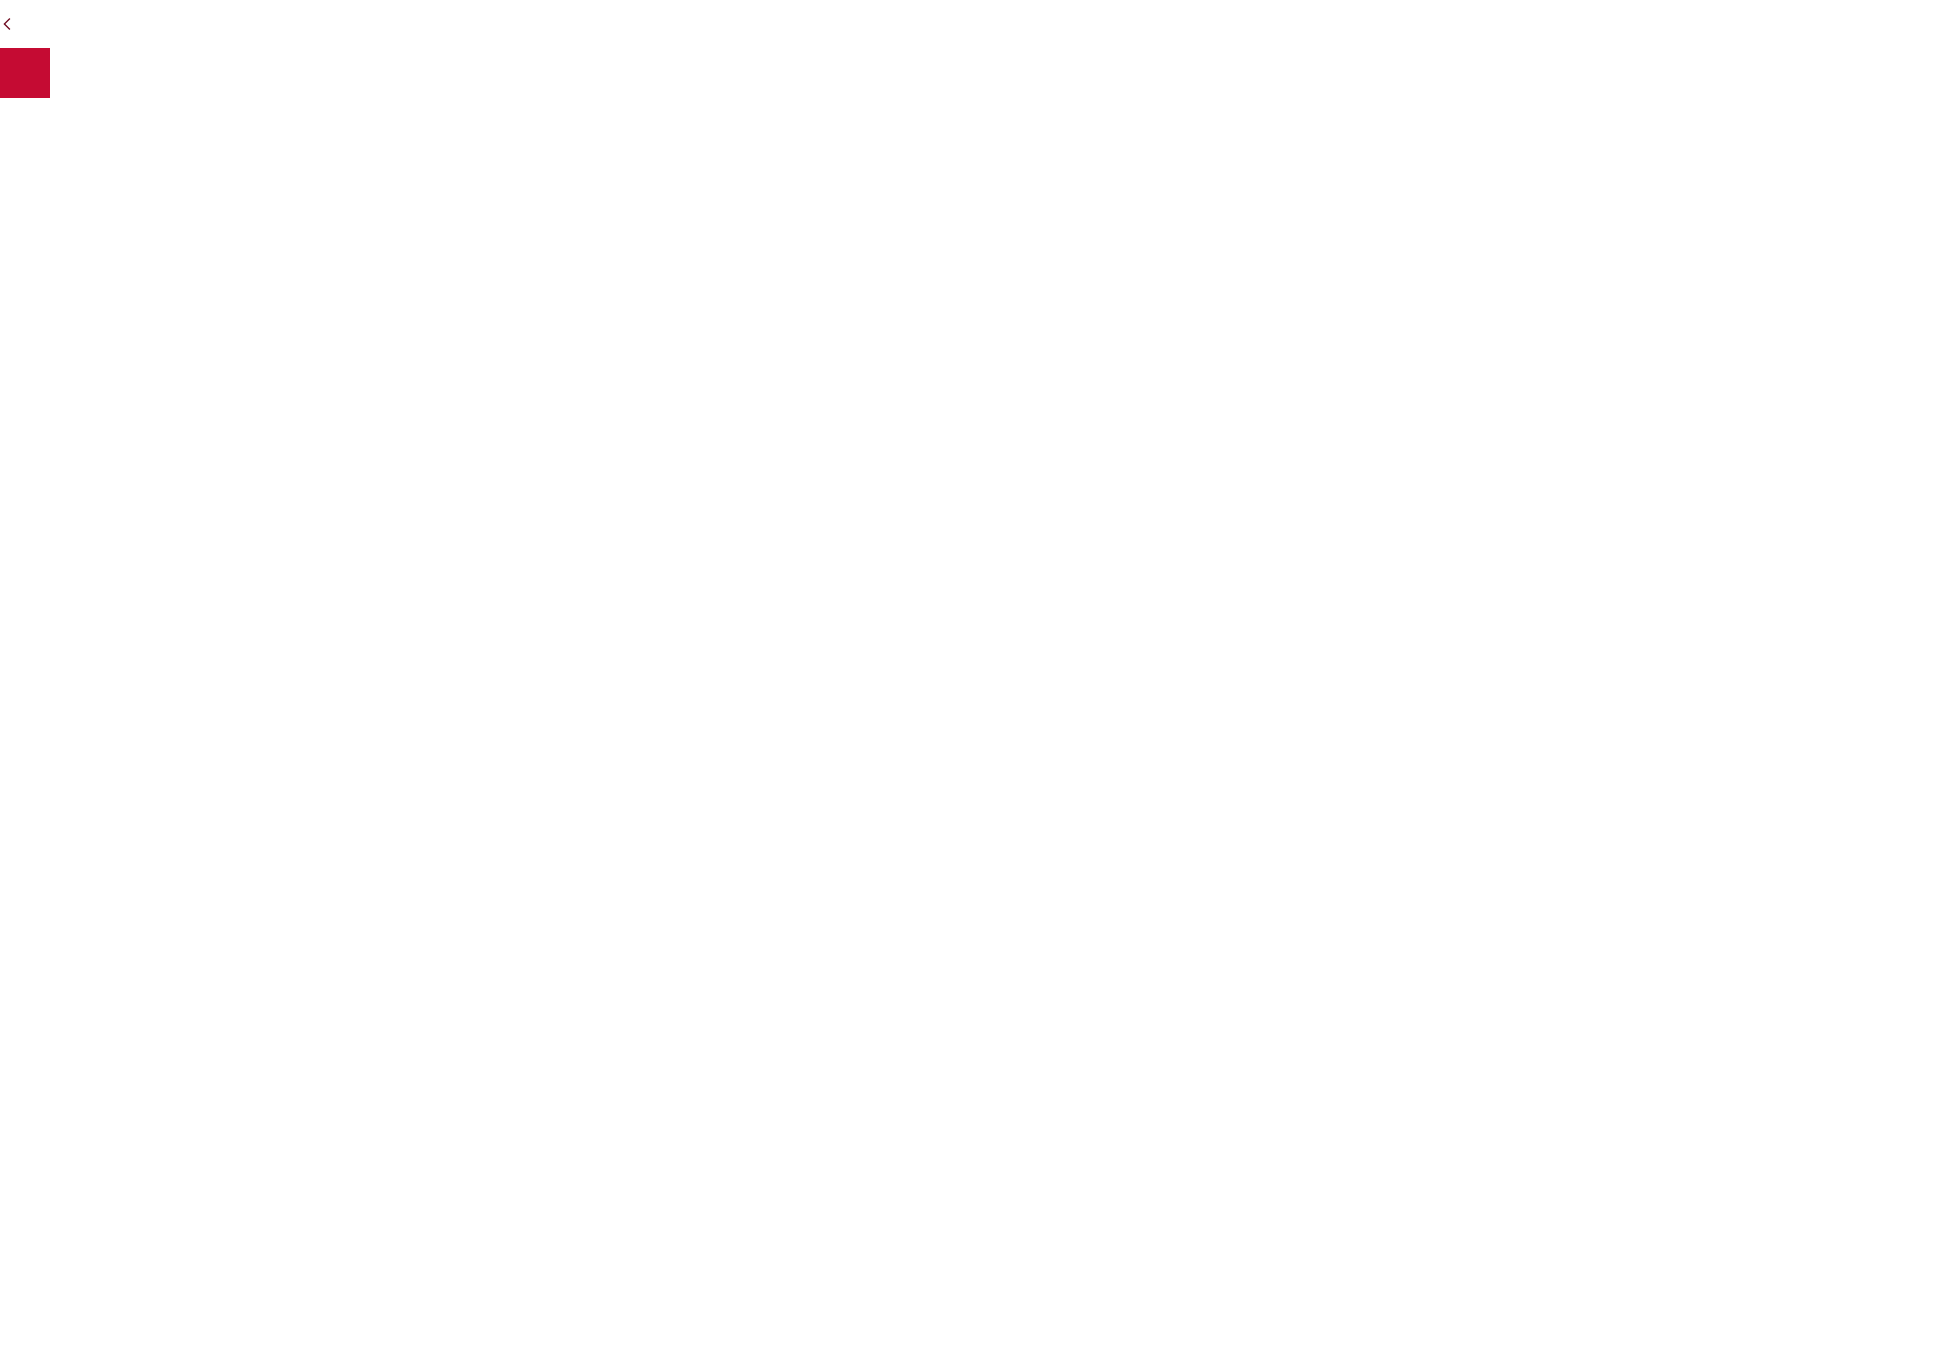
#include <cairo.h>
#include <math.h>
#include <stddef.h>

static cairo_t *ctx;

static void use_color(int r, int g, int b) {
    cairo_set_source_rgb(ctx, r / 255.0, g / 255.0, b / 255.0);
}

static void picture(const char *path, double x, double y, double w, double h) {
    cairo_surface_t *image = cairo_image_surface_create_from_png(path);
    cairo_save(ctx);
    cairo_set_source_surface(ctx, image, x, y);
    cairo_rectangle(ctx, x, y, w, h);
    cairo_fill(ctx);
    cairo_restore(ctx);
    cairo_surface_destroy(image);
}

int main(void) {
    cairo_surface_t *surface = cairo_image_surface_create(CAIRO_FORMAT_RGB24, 1934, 1349);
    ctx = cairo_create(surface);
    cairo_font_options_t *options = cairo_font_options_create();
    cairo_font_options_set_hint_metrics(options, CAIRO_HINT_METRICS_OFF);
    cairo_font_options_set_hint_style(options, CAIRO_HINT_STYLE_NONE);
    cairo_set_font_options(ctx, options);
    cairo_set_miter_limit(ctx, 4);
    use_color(255, 255, 255);
    cairo_paint(ctx);
    picture("img1.png", 3, 18, 8, 12);
    use_color(197, 11, 51);
    cairo_rectangle(ctx, 0, 48, 50, 50);
    cairo_fill(ctx);
    cairo_surface_write_to_png(surface, "result.png");
    cairo_font_options_destroy(options);
    cairo_destroy(ctx);
    cairo_surface_destroy(surface);
    return 0;
}
